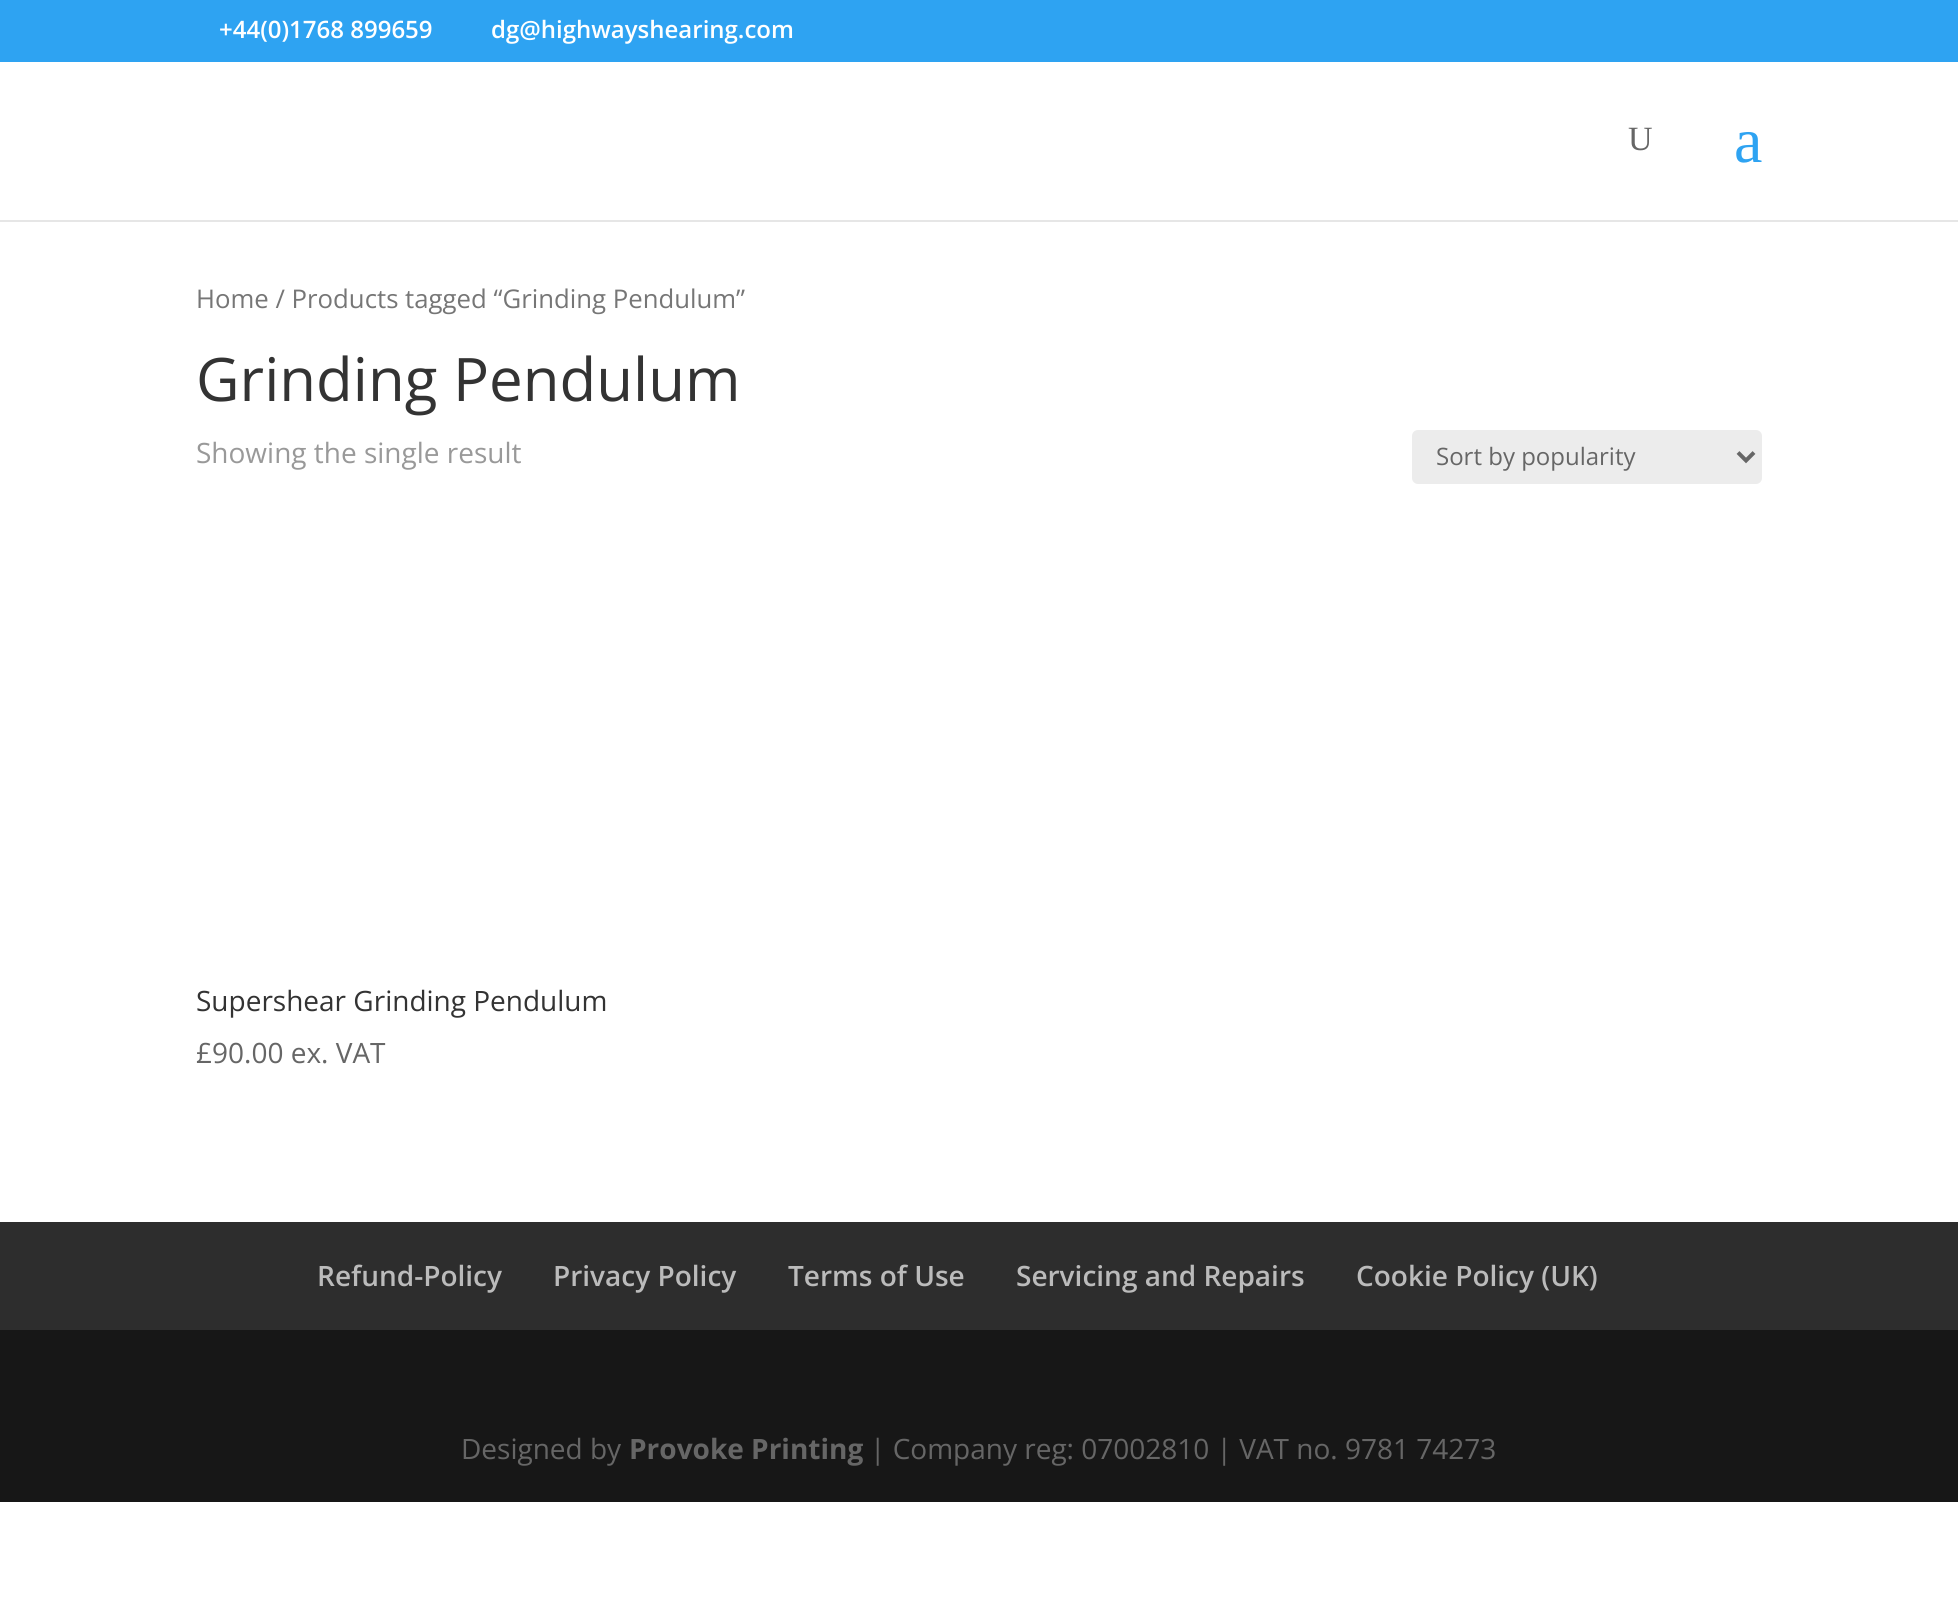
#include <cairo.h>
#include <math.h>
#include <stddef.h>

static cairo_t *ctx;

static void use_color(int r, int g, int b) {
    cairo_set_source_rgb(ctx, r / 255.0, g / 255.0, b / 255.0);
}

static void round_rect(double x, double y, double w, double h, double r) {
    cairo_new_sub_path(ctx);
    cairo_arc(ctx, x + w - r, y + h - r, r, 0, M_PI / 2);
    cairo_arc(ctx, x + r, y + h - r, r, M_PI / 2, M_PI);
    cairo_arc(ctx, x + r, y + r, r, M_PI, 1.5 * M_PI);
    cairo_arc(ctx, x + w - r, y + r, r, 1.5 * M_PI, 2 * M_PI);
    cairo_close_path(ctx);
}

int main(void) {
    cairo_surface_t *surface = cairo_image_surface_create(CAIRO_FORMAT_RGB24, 1958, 1611);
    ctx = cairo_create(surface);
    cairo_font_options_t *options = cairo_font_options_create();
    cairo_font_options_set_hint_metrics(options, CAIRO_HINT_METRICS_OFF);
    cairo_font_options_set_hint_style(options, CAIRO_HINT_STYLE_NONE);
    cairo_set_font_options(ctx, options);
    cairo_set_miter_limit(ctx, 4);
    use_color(255, 255, 255);
    cairo_paint(ctx);
    use_color(46, 163, 242);
    cairo_rectangle(ctx, 0, 0, 1958, 62);
    cairo_fill(ctx);
    cairo_select_font_face(ctx, "Open Sans SemiBold", CAIRO_FONT_SLANT_NORMAL, CAIRO_FONT_WEIGHT_NORMAL);
    cairo_set_font_size(ctx, 24);
    use_color(255, 255, 255);
    cairo_move_to(ctx, 219, 38);
    cairo_show_text(ctx, "+44(0)1768 899659");
    cairo_move_to(ctx, 491, 38);
    cairo_show_text(ctx, "dg@highwayshearing.com");
    use_color(230, 230, 230);
    cairo_rectangle(ctx, 0, 220, 1958, 2);
    cairo_fill(ctx);
    cairo_select_font_face(ctx, "Liberation Serif", CAIRO_FONT_SLANT_NORMAL, CAIRO_FONT_WEIGHT_NORMAL);
    cairo_set_font_size(ctx, 34);
    use_color(102, 102, 102);
    cairo_move_to(ctx, 1628, 150);
    cairo_show_text(ctx, "U");
    cairo_set_font_size(ctx, 64);
    use_color(46, 163, 242);
    cairo_move_to(ctx, 1734, 162);
    cairo_show_text(ctx, "a");
    cairo_select_font_face(ctx, "Open Sans", CAIRO_FONT_SLANT_NORMAL, CAIRO_FONT_WEIGHT_NORMAL);
    cairo_set_font_size(ctx, 25.75);
    use_color(118, 118, 118);
    cairo_move_to(ctx, 196, 308);
    cairo_show_text(ctx, "Home / Products tagged “Grinding Pendulum”");
    cairo_set_font_size(ctx, 60);
    use_color(51, 51, 51);
    cairo_move_to(ctx, 196, 401);
    cairo_show_text(ctx, "Grinding Pendulum");
    cairo_set_font_size(ctx, 28);
    use_color(153, 153, 153);
    cairo_move_to(ctx, 196, 463);
    cairo_show_text(ctx, "Showing the single result");
    use_color(236, 236, 236);
    round_rect(1412, 430, 350, 54, 6);
    cairo_fill(ctx);
    cairo_new_path(ctx);
    cairo_move_to(ctx, 1738, 452.5);
    cairo_line_to(ctx, 1746, 460.5);
    cairo_line_to(ctx, 1754, 452.5);
    use_color(102, 102, 102);
    cairo_set_line_width(ctx, 4);
    cairo_stroke(ctx);
    cairo_set_font_size(ctx, 24);
    cairo_move_to(ctx, 1436, 465);
    cairo_show_text(ctx, "Sort by popularity");
    cairo_set_font_size(ctx, 28);
    use_color(51, 51, 51);
    cairo_move_to(ctx, 196, 1011);
    cairo_show_text(ctx, "Supershear Grinding Pendulum");
    use_color(102, 102, 102);
    cairo_move_to(ctx, 196, 1063);
    cairo_show_text(ctx, "£90.00 ex. VAT");
    use_color(45, 45, 45);
    cairo_rectangle(ctx, 0, 1222, 1958, 108);
    cairo_fill(ctx);
    cairo_select_font_face(ctx, "Open Sans SemiBold", CAIRO_FONT_SLANT_NORMAL, CAIRO_FONT_WEIGHT_NORMAL);
    use_color(187, 187, 187);
    cairo_move_to(ctx, 317, 1286);
    cairo_show_text(ctx, "Refund-Policy");
    cairo_move_to(ctx, 553, 1286);
    cairo_show_text(ctx, "Privacy Policy");
    cairo_move_to(ctx, 788, 1286);
    cairo_show_text(ctx, "Terms of Use");
    cairo_move_to(ctx, 1016, 1286);
    cairo_show_text(ctx, "Servicing and Repairs");
    cairo_move_to(ctx, 1356, 1286);
    cairo_show_text(ctx, "Cookie Policy (UK)");
    use_color(23, 23, 23);
    cairo_rectangle(ctx, 0, 1330, 1958, 172);
    cairo_fill(ctx);
    cairo_select_font_face(ctx, "Open Sans", CAIRO_FONT_SLANT_NORMAL, CAIRO_FONT_WEIGHT_NORMAL);
    use_color(102, 102, 102);
    cairo_move_to(ctx, 461, 1459);
    cairo_show_text(ctx, "Designed by");
    cairo_select_font_face(ctx, "Open Sans", CAIRO_FONT_SLANT_NORMAL, CAIRO_FONT_WEIGHT_BOLD);
    cairo_move_to(ctx, 629, 1459);
    cairo_show_text(ctx, "Provoke Printing");
    cairo_select_font_face(ctx, "Open Sans", CAIRO_FONT_SLANT_NORMAL, CAIRO_FONT_WEIGHT_NORMAL);
    cairo_move_to(ctx, 870, 1459);
    cairo_show_text(ctx, "| Company reg: 07002810 | VAT no. 9781 74273");
    cairo_surface_write_to_png(surface, "result.png");
    cairo_font_options_destroy(options);
    cairo_destroy(ctx);
    cairo_surface_destroy(surface);
    return 0;
}
